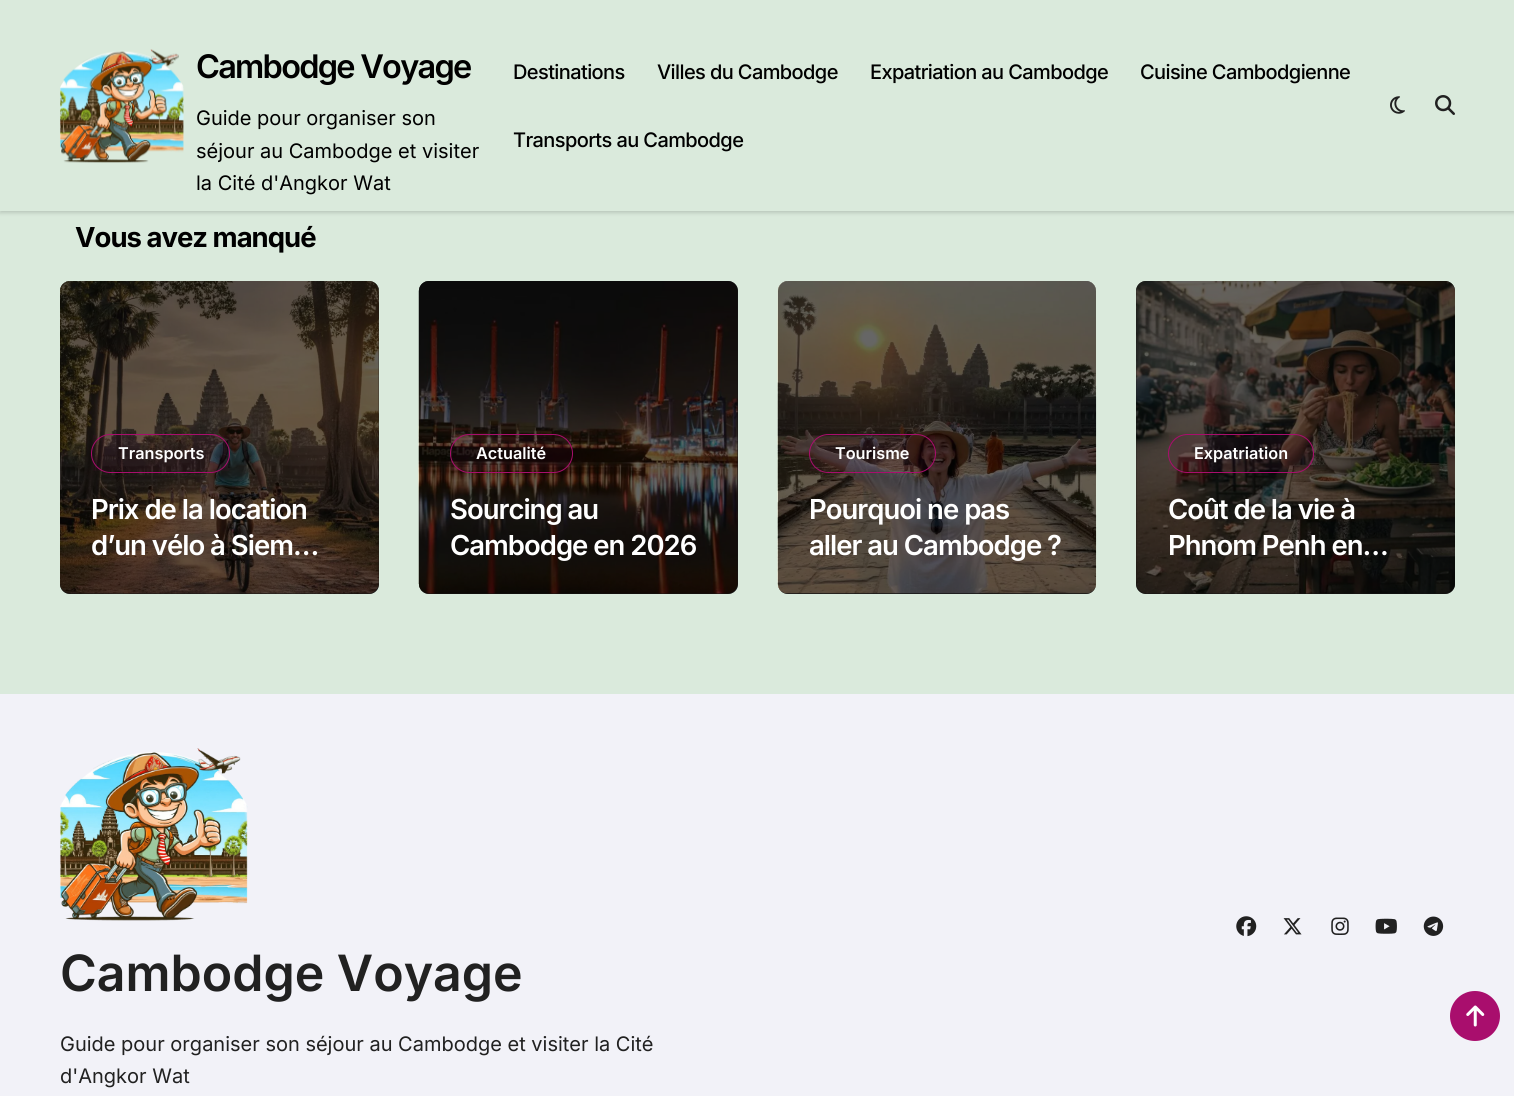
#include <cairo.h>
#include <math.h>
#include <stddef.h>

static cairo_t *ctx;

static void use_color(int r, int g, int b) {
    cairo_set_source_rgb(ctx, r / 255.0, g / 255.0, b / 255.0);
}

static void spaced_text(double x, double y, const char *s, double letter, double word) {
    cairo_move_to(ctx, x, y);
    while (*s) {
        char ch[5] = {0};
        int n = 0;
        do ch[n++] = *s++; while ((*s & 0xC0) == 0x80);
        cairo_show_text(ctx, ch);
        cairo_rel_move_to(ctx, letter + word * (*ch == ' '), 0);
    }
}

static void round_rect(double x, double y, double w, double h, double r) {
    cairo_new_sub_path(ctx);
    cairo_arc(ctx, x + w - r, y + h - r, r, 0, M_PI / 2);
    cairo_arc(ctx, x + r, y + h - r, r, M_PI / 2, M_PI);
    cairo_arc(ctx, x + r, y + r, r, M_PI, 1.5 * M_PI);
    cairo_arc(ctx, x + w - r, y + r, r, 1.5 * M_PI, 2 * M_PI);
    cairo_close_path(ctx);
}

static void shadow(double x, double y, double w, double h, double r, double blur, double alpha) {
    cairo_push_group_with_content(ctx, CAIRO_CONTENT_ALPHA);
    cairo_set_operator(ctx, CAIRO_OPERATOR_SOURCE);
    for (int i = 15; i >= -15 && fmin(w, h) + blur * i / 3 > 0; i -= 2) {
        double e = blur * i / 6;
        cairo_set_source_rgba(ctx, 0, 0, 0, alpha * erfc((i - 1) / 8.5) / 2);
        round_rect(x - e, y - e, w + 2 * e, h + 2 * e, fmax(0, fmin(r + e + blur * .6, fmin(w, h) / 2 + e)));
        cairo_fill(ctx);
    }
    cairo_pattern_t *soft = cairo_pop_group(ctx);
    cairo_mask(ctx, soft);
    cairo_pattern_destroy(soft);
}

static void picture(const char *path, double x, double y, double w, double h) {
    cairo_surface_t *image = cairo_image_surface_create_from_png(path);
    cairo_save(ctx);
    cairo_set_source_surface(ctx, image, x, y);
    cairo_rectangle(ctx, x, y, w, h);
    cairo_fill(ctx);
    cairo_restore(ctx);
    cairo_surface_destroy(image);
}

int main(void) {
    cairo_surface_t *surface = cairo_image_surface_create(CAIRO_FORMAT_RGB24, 1514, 1096);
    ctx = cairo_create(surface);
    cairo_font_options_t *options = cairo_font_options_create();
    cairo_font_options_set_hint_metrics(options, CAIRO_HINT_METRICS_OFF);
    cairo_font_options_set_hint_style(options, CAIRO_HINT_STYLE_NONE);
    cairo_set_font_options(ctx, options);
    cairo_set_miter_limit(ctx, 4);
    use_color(218, 234, 220);
    cairo_paint(ctx);
    use_color(0, 0, 0);
    shadow(0, 1, 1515, 212, 0, 2, 0.15);
    use_color(218, 234, 220);
    cairo_rectangle(ctx, 0, 0, 1514, 211);
    cairo_fill(ctx);
    picture("img1.png", 60, 49, 124, 114);
    cairo_select_font_face(ctx, "Inter SemiBold", CAIRO_FONT_SLANT_NORMAL, CAIRO_FONT_WEIGHT_NORMAL);
    cairo_set_font_size(ctx, 32.5);
    use_color(0, 0, 0);
    spaced_text(196, 78, "Cambodge Voyage", -1.75, 0);
    cairo_select_font_face(ctx, "Inter", CAIRO_FONT_SLANT_NORMAL, CAIRO_FONT_WEIGHT_NORMAL);
    cairo_set_font_size(ctx, 20);
    cairo_move_to(ctx, 196, 125);
    cairo_show_text(ctx, "Guide pour organiser son");
    cairo_move_to(ctx, 196, 158);
    cairo_show_text(ctx, "séjour au Cambodge et visiter");
    cairo_move_to(ctx, 196, 190);
    cairo_show_text(ctx, "la Cité d'Angkor Wat");
    cairo_select_font_face(ctx, "Inter Medium", CAIRO_FONT_SLANT_NORMAL, CAIRO_FONT_WEIGHT_NORMAL);
    spaced_text(513, 79, "Destinations", -0.6, 0);
    spaced_text(657, 79, "Villes du Cambodge", -0.6, 0);
    spaced_text(870, 79, "Expatriation au Cambodge", -0.6, 0);
    spaced_text(1140, 79, "Cuisine Cambodgienne", -0.6, 0);
    spaced_text(513, 147, "Transports au Cambodge", -0.6, 0);
    picture("img2.png", 1390, 96, 15, 18);
    picture("img3.png", 1435, 95, 20, 20);
    cairo_select_font_face(ctx, "Inter", CAIRO_FONT_SLANT_NORMAL, CAIRO_FONT_WEIGHT_BOLD);
    cairo_set_font_size(ctx, 27.5);
    spaced_text(75, 247, "Vous avez manqué", -1, 0);
    use_color(51, 51, 51);
    round_rect(60, 281, 319, 313, 10);
    cairo_fill(ctx);
    picture("img4.png", 60, 281, 319, 313);
    cairo_set_source_rgba(ctx, 0, 0, 0, 0.6);
    round_rect(60, 281, 319, 313, 10);
    cairo_fill(ctx);
    round_rect(91.5, 434.5, 138, 38, 19);
    use_color(169, 14, 109);
    cairo_set_line_width(ctx, 1);
    cairo_stroke(ctx);
    cairo_set_source_rgba(ctx, 0.663, 0.055, 0.427, 0.05);
    cairo_rectangle(ctx, 93, 435, 136, 36);
    cairo_fill(ctx);
    cairo_select_font_face(ctx, "Inter SemiBold", CAIRO_FONT_SLANT_NORMAL, CAIRO_FONT_WEIGHT_NORMAL);
    cairo_set_font_size(ctx, 16.25);
    use_color(255, 255, 255);
    cairo_move_to(ctx, 118, 459);
    cairo_show_text(ctx, "Transports");
    cairo_set_font_size(ctx, 27.5);
    spaced_text(91, 519, "Prix de la location", -1, 0);
    spaced_text(91, 555, "d’un vélo à Siem…", -1, 0);
    use_color(51, 51, 51);
    round_rect(419, 281, 319, 313, 10);
    cairo_fill(ctx);
    picture("img5.png", 418, 281, 320, 313);
    cairo_set_source_rgba(ctx, 0, 0, 0, 0.6);
    round_rect(419, 281, 319, 313, 10);
    cairo_fill(ctx);
    round_rect(450.5, 434.5, 122, 38, 19);
    use_color(169, 14, 109);
    cairo_stroke(ctx);
    cairo_set_source_rgba(ctx, 0.663, 0.055, 0.427, 0.05);
    cairo_rectangle(ctx, 451, 435, 120, 36);
    cairo_fill(ctx);
    cairo_set_font_size(ctx, 16.25);
    use_color(255, 255, 255);
    cairo_move_to(ctx, 476, 459);
    cairo_show_text(ctx, "Actualité");
    cairo_set_font_size(ctx, 27.5);
    spaced_text(450, 519, "Sourcing au", -1, 0);
    spaced_text(450, 555, "Cambodge en 2026", -1, 0);
    use_color(51, 51, 51);
    round_rect(778, 281, 318, 313, 10);
    cairo_fill(ctx);
    picture("img6.png", 777, 281, 320, 313);
    cairo_set_source_rgba(ctx, 0, 0, 0, 0.6);
    round_rect(778, 281, 318, 313, 10);
    cairo_fill(ctx);
    round_rect(809.5, 434.5, 126, 38, 19);
    use_color(169, 14, 109);
    cairo_stroke(ctx);
    cairo_set_source_rgba(ctx, 0.663, 0.055, 0.427, 0.05);
    cairo_rectangle(ctx, 810, 435, 125, 36);
    cairo_fill(ctx);
    cairo_set_font_size(ctx, 16.25);
    use_color(255, 255, 255);
    cairo_move_to(ctx, 835, 459);
    cairo_show_text(ctx, "Tourisme");
    cairo_set_font_size(ctx, 27.5);
    spaced_text(809, 519, "Pourquoi ne pas", -1, 0);
    spaced_text(809, 555, "aller au Cambodge ?", -1, 0);
    use_color(51, 51, 51);
    round_rect(1136, 281, 319, 313, 10);
    cairo_fill(ctx);
    picture("img7.png", 1136, 281, 319, 313);
    cairo_set_source_rgba(ctx, 0, 0, 0, 0.6);
    round_rect(1136, 281, 319, 313, 10);
    cairo_fill(ctx);
    round_rect(1168.5, 434.5, 145, 38, 19);
    use_color(169, 14, 109);
    cairo_stroke(ctx);
    cairo_set_source_rgba(ctx, 0.663, 0.055, 0.427, 0.05);
    cairo_rectangle(ctx, 1169, 435, 144, 36);
    cairo_fill(ctx);
    cairo_set_font_size(ctx, 16.25);
    use_color(255, 255, 255);
    cairo_move_to(ctx, 1194, 459);
    cairo_show_text(ctx, "Expatriation");
    cairo_set_font_size(ctx, 27.5);
    spaced_text(1168, 519, "Coût de la vie à", -1, 0);
    spaced_text(1168, 555, "Phnom Penh en…", -1, 0);
    use_color(242, 242, 248);
    cairo_rectangle(ctx, 0, 694, 1514, 402);
    cairo_fill(ctx);
    picture("img8.png", 1236, 916, 21, 21);
    picture("img9.png", 1283, 918, 19, 17);
    picture("img10.png", 1331, 917, 18, 18);
    picture("img11.png", 1375, 918, 22, 16);
    picture("img12.png", 1423, 916, 21, 20);
    picture("img13.png", 60, 748, 188, 173);
    cairo_set_font_size(ctx, 50);
    use_color(33, 33, 33);
    cairo_move_to(ctx, 60, 991);
    cairo_show_text(ctx, "Cambodge Voyage");
    cairo_select_font_face(ctx, "Inter", CAIRO_FONT_SLANT_NORMAL, CAIRO_FONT_WEIGHT_NORMAL);
    cairo_set_font_size(ctx, 20);
    cairo_move_to(ctx, 60, 1051);
    cairo_show_text(ctx, "Guide pour organiser son séjour au Cambodge et visiter la Cité");
    cairo_move_to(ctx, 60, 1083);
    cairo_show_text(ctx, "d'Angkor Wat");
    use_color(169, 14, 109);
    cairo_new_path(ctx);
    cairo_arc(ctx, 1475, 1016, 25, 0, 2 * M_PI);
    cairo_fill(ctx);
    picture("img14.png", 1466, 1005, 19, 22);
    cairo_surface_write_to_png(surface, "result.png");
    cairo_font_options_destroy(options);
    cairo_destroy(ctx);
    cairo_surface_destroy(surface);
    return 0;
}
